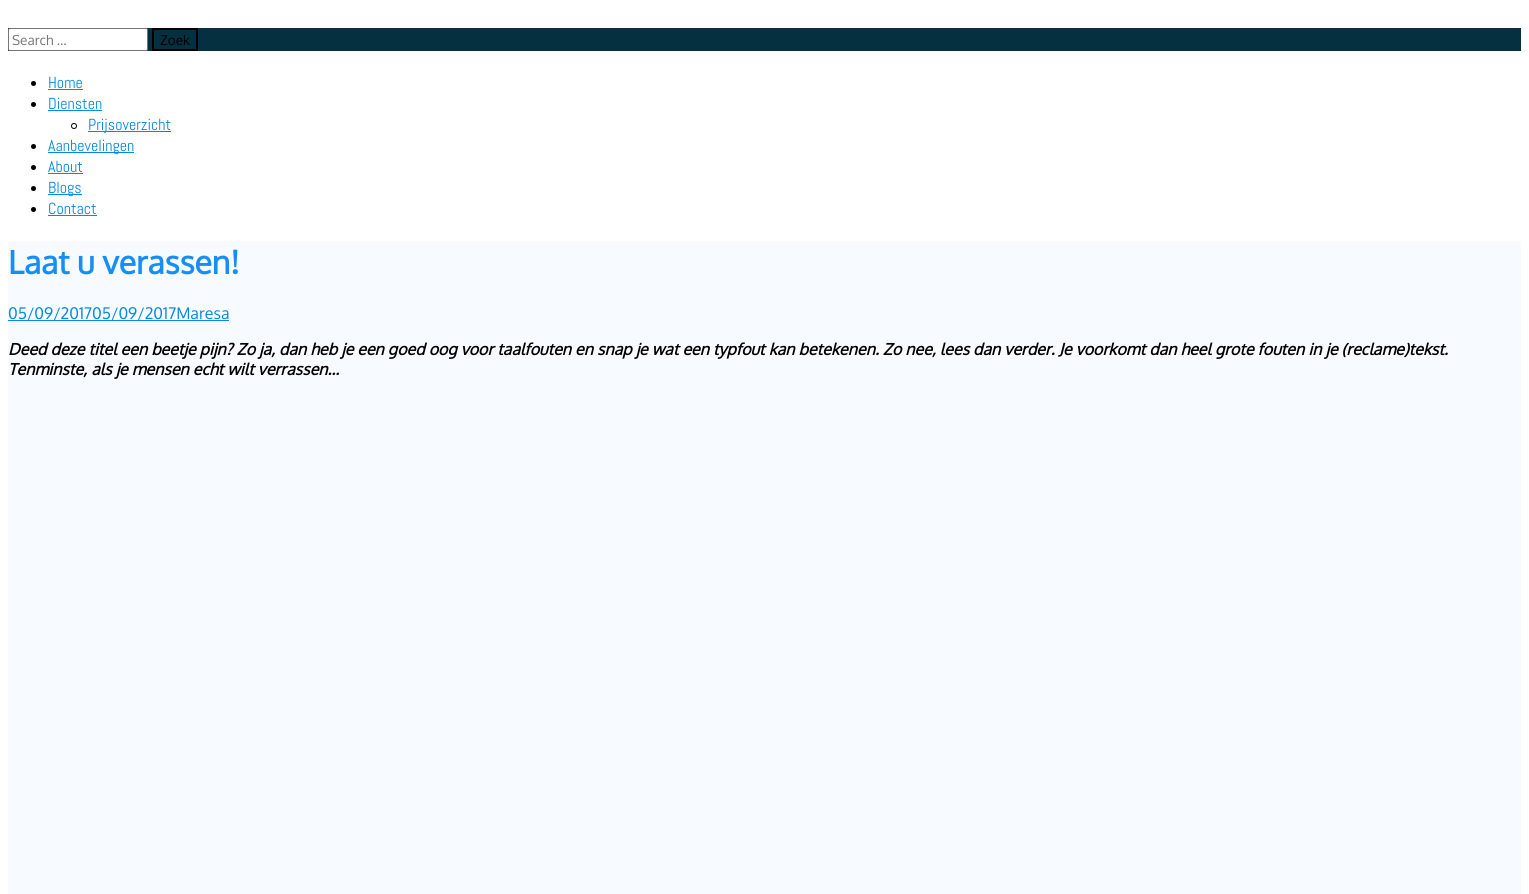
#include <cairo.h>
#include <math.h>
#include <stddef.h>

static cairo_t *ctx;

static void use_color(int r, int g, int b) {
    cairo_set_source_rgb(ctx, r / 255.0, g / 255.0, b / 255.0);
}

static void round_rect(double x, double y, double w, double h, double r) {
    cairo_new_sub_path(ctx);
    cairo_arc(ctx, x + w - r, y + h - r, r, 0, M_PI / 2);
    cairo_arc(ctx, x + r, y + h - r, r, M_PI / 2, M_PI);
    cairo_arc(ctx, x + r, y + r, r, M_PI, 1.5 * M_PI);
    cairo_arc(ctx, x + w - r, y + r, r, 1.5 * M_PI, 2 * M_PI);
    cairo_close_path(ctx);
}

int main(void) {
    cairo_surface_t *surface = cairo_image_surface_create(CAIRO_FORMAT_RGB24, 1529, 894);
    ctx = cairo_create(surface);
    cairo_font_options_t *options = cairo_font_options_create();
    cairo_font_options_set_hint_metrics(options, CAIRO_HINT_METRICS_OFF);
    cairo_font_options_set_hint_style(options, CAIRO_HINT_STYLE_NONE);
    cairo_set_font_options(ctx, options);
    cairo_set_miter_limit(ctx, 4);
    use_color(255, 255, 255);
    cairo_paint(ctx);
    use_color(5, 48, 64);
    cairo_rectangle(ctx, 8, 28, 1513, 23);
    cairo_fill(ctx);
    use_color(255, 255, 255);
    round_rect(8.5, 28.5, 139, 22, 1.5);
    cairo_fill_preserve(ctx);
    use_color(118, 118, 118);
    cairo_set_line_width(ctx, 1);
    cairo_stroke(ctx);
    cairo_select_font_face(ctx, "Oxygen", CAIRO_FONT_SLANT_NORMAL, CAIRO_FONT_WEIGHT_NORMAL);
    cairo_set_font_size(ctx, 13.5);
    use_color(117, 117, 117);
    cairo_move_to(ctx, 12, 45);
    cairo_show_text(ctx, "Search …");
    cairo_rectangle(ctx, 153, 29, 44, 21);
    use_color(0, 0, 0);
    cairo_set_line_width(ctx, 2);
    cairo_stroke(ctx);
    cairo_move_to(ctx, 160, 45);
    cairo_show_text(ctx, "Zoek");
    cairo_new_path(ctx);
    cairo_arc(ctx, 33.5, 83.5, 2.5, 0, 2 * M_PI);
    cairo_fill(ctx);
    cairo_select_font_face(ctx, "Abel", CAIRO_FONT_SLANT_NORMAL, CAIRO_FONT_WEIGHT_NORMAL);
    cairo_set_font_size(ctx, 16);
    use_color(6, 136, 229);
    cairo_move_to(ctx, 48, 88);
    cairo_show_text(ctx, "Home");
    cairo_rectangle(ctx, 48, 89, 35, 1);
    cairo_fill(ctx);
    use_color(0, 0, 0);
    cairo_arc(ctx, 33.5, 104.5, 2.5, 0, 2 * M_PI);
    cairo_fill(ctx);
    use_color(6, 136, 229);
    cairo_move_to(ctx, 48, 109);
    cairo_show_text(ctx, "Diensten");
    cairo_rectangle(ctx, 48, 110, 54, 1);
    cairo_fill(ctx);
    cairo_arc(ctx, 74, 126, 2.5, 0, 2 * M_PI);
    use_color(0, 0, 0);
    cairo_set_line_width(ctx, 1);
    cairo_stroke(ctx);
    use_color(6, 136, 229);
    cairo_rectangle(ctx, 88, 131, 83, 1);
    cairo_fill(ctx);
    cairo_move_to(ctx, 88, 130);
    cairo_show_text(ctx, "Prijsoverzicht");
    use_color(0, 0, 0);
    cairo_new_path(ctx);
    cairo_arc(ctx, 33.5, 146.5, 2.5, 0, 2 * M_PI);
    cairo_fill(ctx);
    use_color(6, 136, 229);
    cairo_rectangle(ctx, 48, 152, 86, 1);
    cairo_fill(ctx);
    cairo_move_to(ctx, 48, 151);
    cairo_show_text(ctx, "Aanbevelingen");
    use_color(0, 0, 0);
    cairo_new_path(ctx);
    cairo_arc(ctx, 33.5, 167.5, 2.5, 0, 2 * M_PI);
    cairo_fill(ctx);
    use_color(6, 136, 229);
    cairo_move_to(ctx, 48, 172);
    cairo_show_text(ctx, "About");
    cairo_rectangle(ctx, 48, 173, 35, 1);
    cairo_fill(ctx);
    use_color(0, 0, 0);
    cairo_arc(ctx, 33.5, 188.5, 2.5, 0, 2 * M_PI);
    cairo_fill(ctx);
    use_color(6, 136, 229);
    cairo_rectangle(ctx, 48, 194, 34, 1);
    cairo_fill(ctx);
    cairo_move_to(ctx, 48, 193);
    cairo_show_text(ctx, "Blogs");
    use_color(0, 0, 0);
    cairo_new_path(ctx);
    cairo_arc(ctx, 33.5, 209.5, 2.5, 0, 2 * M_PI);
    cairo_fill(ctx);
    use_color(6, 136, 229);
    cairo_move_to(ctx, 48, 214);
    cairo_show_text(ctx, "Contact");
    cairo_rectangle(ctx, 48, 215, 49, 1);
    cairo_fill(ctx);
    use_color(247, 251, 255);
    cairo_rectangle(ctx, 8, 241, 1513, 653);
    cairo_fill(ctx);
    cairo_select_font_face(ctx, "Oxygen", CAIRO_FONT_SLANT_NORMAL, CAIRO_FONT_WEIGHT_BOLD);
    cairo_set_font_size(ctx, 32);
    use_color(22, 142, 247);
    cairo_move_to(ctx, 8, 274);
    cairo_show_text(ctx, "Laat u verassen!");
    use_color(6, 136, 229);
    cairo_rectangle(ctx, 8, 320, 221, 1);
    cairo_fill(ctx);
    cairo_select_font_face(ctx, "Oxygen", CAIRO_FONT_SLANT_NORMAL, CAIRO_FONT_WEIGHT_NORMAL);
    cairo_set_font_size(ctx, 16);
    cairo_move_to(ctx, 8, 319);
    cairo_show_text(ctx, "05/09/201705/09/2017Maresa");
    cairo_select_font_face(ctx, "Oxygen", CAIRO_FONT_SLANT_ITALIC, CAIRO_FONT_WEIGHT_BOLD);
    use_color(0, 0, 0);
    cairo_move_to(ctx, 8, 355);
    cairo_show_text(ctx, "Deed deze titel een beetje pijn? Zo ja, dan heb je een goed oog voor taalfouten en snap je wat een typfout kan betekenen. Zo nee, lees dan verder. Je voorkomt dan heel grote fouten in je (reclame)tekst.");
    cairo_move_to(ctx, 8, 375);
    cairo_show_text(ctx, "Tenminste, als je mensen echt wilt verrassen…");
    cairo_surface_write_to_png(surface, "result.png");
    cairo_font_options_destroy(options);
    cairo_destroy(ctx);
    cairo_surface_destroy(surface);
    return 0;
}
